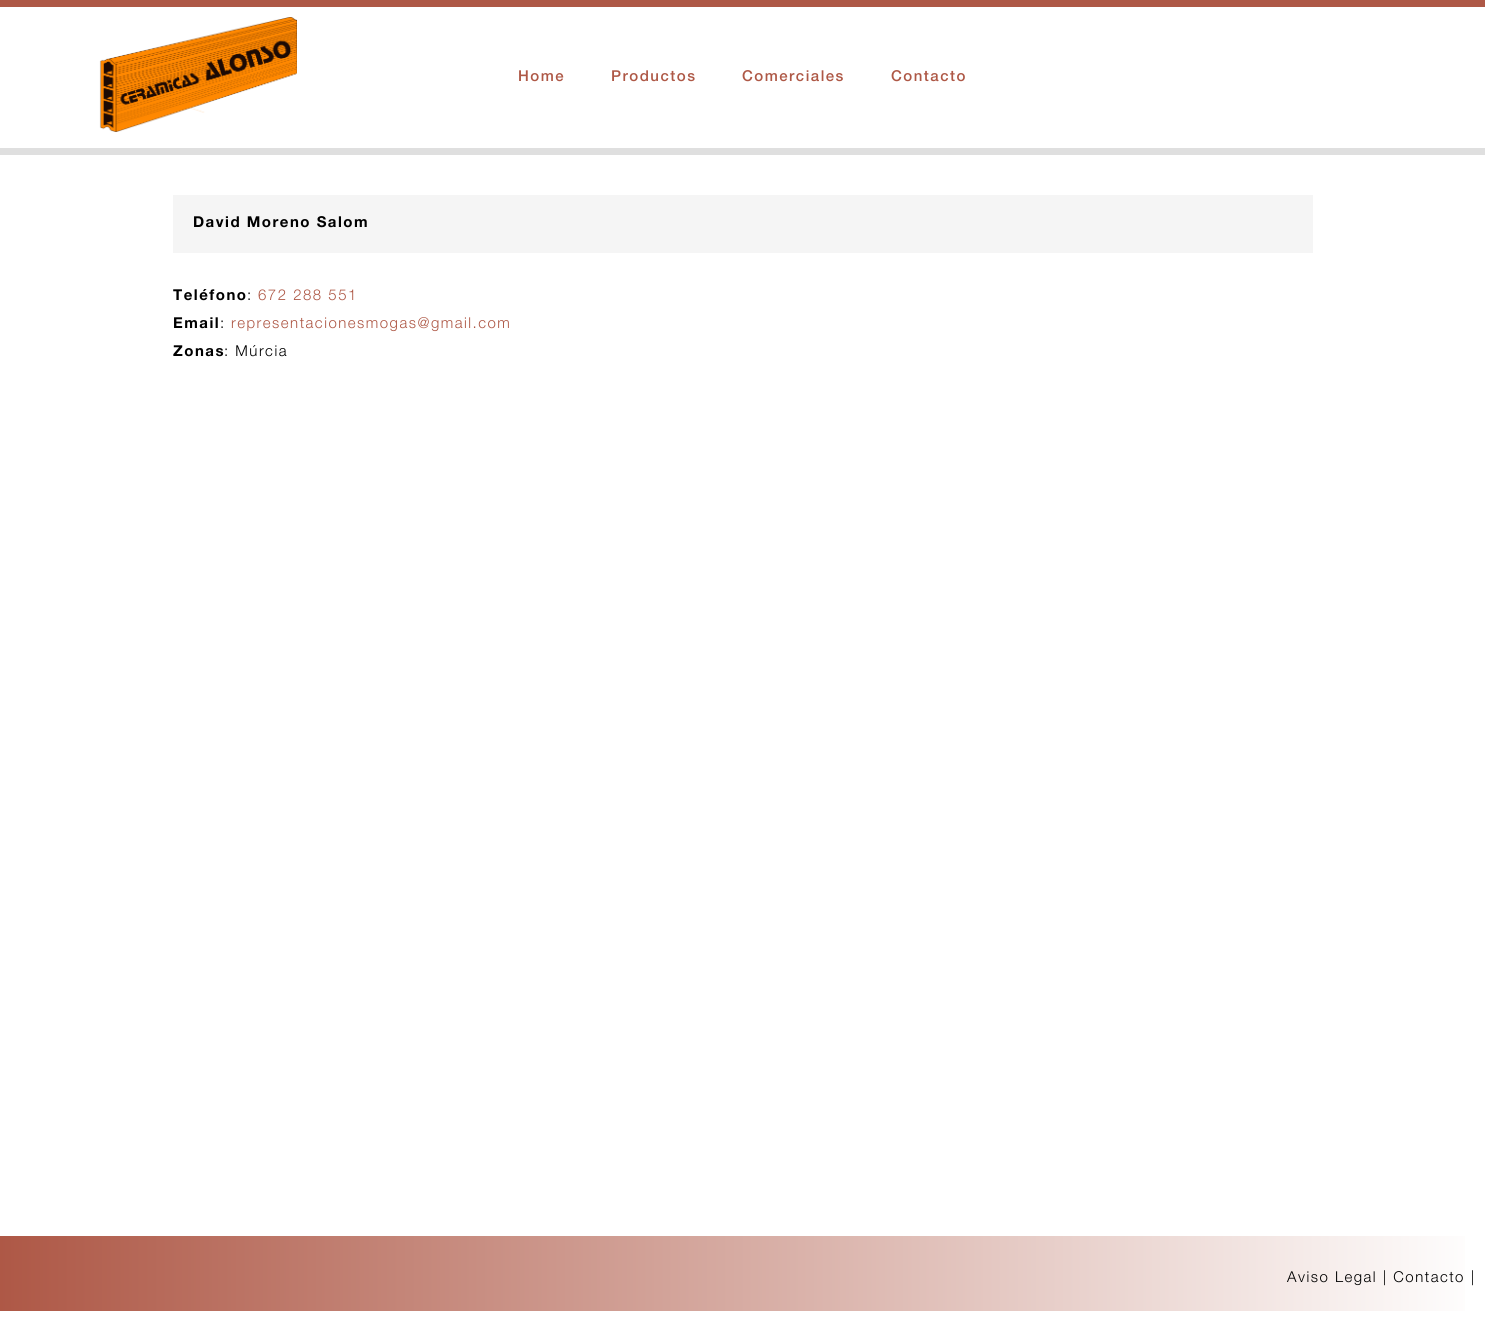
#include <cairo.h>
#include <math.h>
#include <stddef.h>

static cairo_t *ctx;

static void use_color(int r, int g, int b) {
    cairo_set_source_rgb(ctx, r / 255.0, g / 255.0, b / 255.0);
}

static void spaced_text(double x, double y, const char *s, double letter, double word) {
    cairo_move_to(ctx, x, y);
    while (*s) {
        char ch[5] = {0};
        int n = 0;
        do ch[n++] = *s++; while ((*s & 0xC0) == 0x80);
        cairo_show_text(ctx, ch);
        cairo_rel_move_to(ctx, letter + word * (*ch == ' '), 0);
    }
}

static void picture(const char *path, double x, double y, double w, double h) {
    cairo_surface_t *image = cairo_image_surface_create_from_png(path);
    cairo_save(ctx);
    cairo_set_source_surface(ctx, image, x, y);
    cairo_rectangle(ctx, x, y, w, h);
    cairo_fill(ctx);
    cairo_restore(ctx);
    cairo_surface_destroy(image);
}

int main(void) {
    cairo_surface_t *surface = cairo_image_surface_create(CAIRO_FORMAT_RGB24, 1485, 1343);
    ctx = cairo_create(surface);
    cairo_font_options_t *options = cairo_font_options_create();
    cairo_font_options_set_hint_metrics(options, CAIRO_HINT_METRICS_OFF);
    cairo_font_options_set_hint_style(options, CAIRO_HINT_STYLE_NONE);
    cairo_set_font_options(ctx, options);
    cairo_set_miter_limit(ctx, 4);
    cairo_pattern_t *gradient;
    use_color(255, 255, 255);
    cairo_paint(ctx);
    use_color(174, 88, 70);
    cairo_rectangle(ctx, 0, 0, 1485, 7);
    cairo_fill(ctx);
    use_color(223, 223, 223);
    cairo_rectangle(ctx, 0, 148, 1485, 7);
    cairo_fill(ctx);
    picture("img1.png", 99, 17, 198, 115);
    cairo_select_font_face(ctx, "Helvetica Neue Medium", CAIRO_FONT_SLANT_NORMAL, CAIRO_FONT_WEIGHT_NORMAL);
    cairo_set_font_size(ctx, 15);
    use_color(174, 88, 70);
    spaced_text(518, 81, "Home", 1.5, 0);
    spaced_text(611, 81, "Productos", 1.5, 0);
    spaced_text(742, 81, "Comerciales", 1.5, 0);
    spaced_text(891, 81, "Contacto", 1.5, 0);
    use_color(245, 245, 245);
    cairo_rectangle(ctx, 173, 195, 1140, 58);
    cairo_fill(ctx);
    cairo_select_font_face(ctx, "Helvetica Neue", CAIRO_FONT_SLANT_NORMAL, CAIRO_FONT_WEIGHT_BOLD);
    use_color(0, 0, 0);
    spaced_text(193, 227, "David Moreno Salom", 1.5, 0);
    spaced_text(173, 300, "Teléfono", 1.5, 0);
    cairo_select_font_face(ctx, "Helvetica Neue Light", CAIRO_FONT_SLANT_NORMAL, CAIRO_FONT_WEIGHT_NORMAL);
    spaced_text(247, 300, ":", 1.5, 0);
    use_color(174, 88, 70);
    spaced_text(258, 300, "672 288 551", 1.5, 0);
    cairo_select_font_face(ctx, "Helvetica Neue", CAIRO_FONT_SLANT_NORMAL, CAIRO_FONT_WEIGHT_BOLD);
    use_color(0, 0, 0);
    spaced_text(173, 328, "Email", 1.5, 0);
    cairo_select_font_face(ctx, "Helvetica Neue Light", CAIRO_FONT_SLANT_NORMAL, CAIRO_FONT_WEIGHT_NORMAL);
    spaced_text(220, 328, ":", 1.5, 0);
    use_color(174, 88, 70);
    spaced_text(231, 328, "representacionesmogas@gmail.com", 1.5, 0);
    cairo_select_font_face(ctx, "Helvetica Neue", CAIRO_FONT_SLANT_NORMAL, CAIRO_FONT_WEIGHT_BOLD);
    use_color(0, 0, 0);
    spaced_text(173, 356, "Zonas", 1.5, 0);
    cairo_select_font_face(ctx, "Helvetica Neue Light", CAIRO_FONT_SLANT_NORMAL, CAIRO_FONT_WEIGHT_NORMAL);
    spaced_text(224, 356, ": Múrcia", 1.5, 0);
    gradient = cairo_pattern_create_linear(0, 1274, 1485, 1274);
    cairo_pattern_add_color_stop_rgba(gradient, 0, 1, 1, 1, 1);
    cairo_pattern_add_color_stop_rgba(gradient, 0, 0.682, 0.345, 0.275, 1);
    cairo_pattern_add_color_stop_rgba(gradient, 1, 1, 1, 1, 1);
    cairo_set_source(ctx, gradient);
    cairo_pattern_destroy(gradient);
    cairo_rectangle(ctx, 0, 1236, 1465, 75);
    cairo_fill(ctx);
    use_color(0, 0, 0);
    spaced_text(1287, 1282, "Aviso Legal | Contacto |", 1.5, 0);
    cairo_surface_write_to_png(surface, "result.png");
    cairo_font_options_destroy(options);
    cairo_destroy(ctx);
    cairo_surface_destroy(surface);
    return 0;
}
